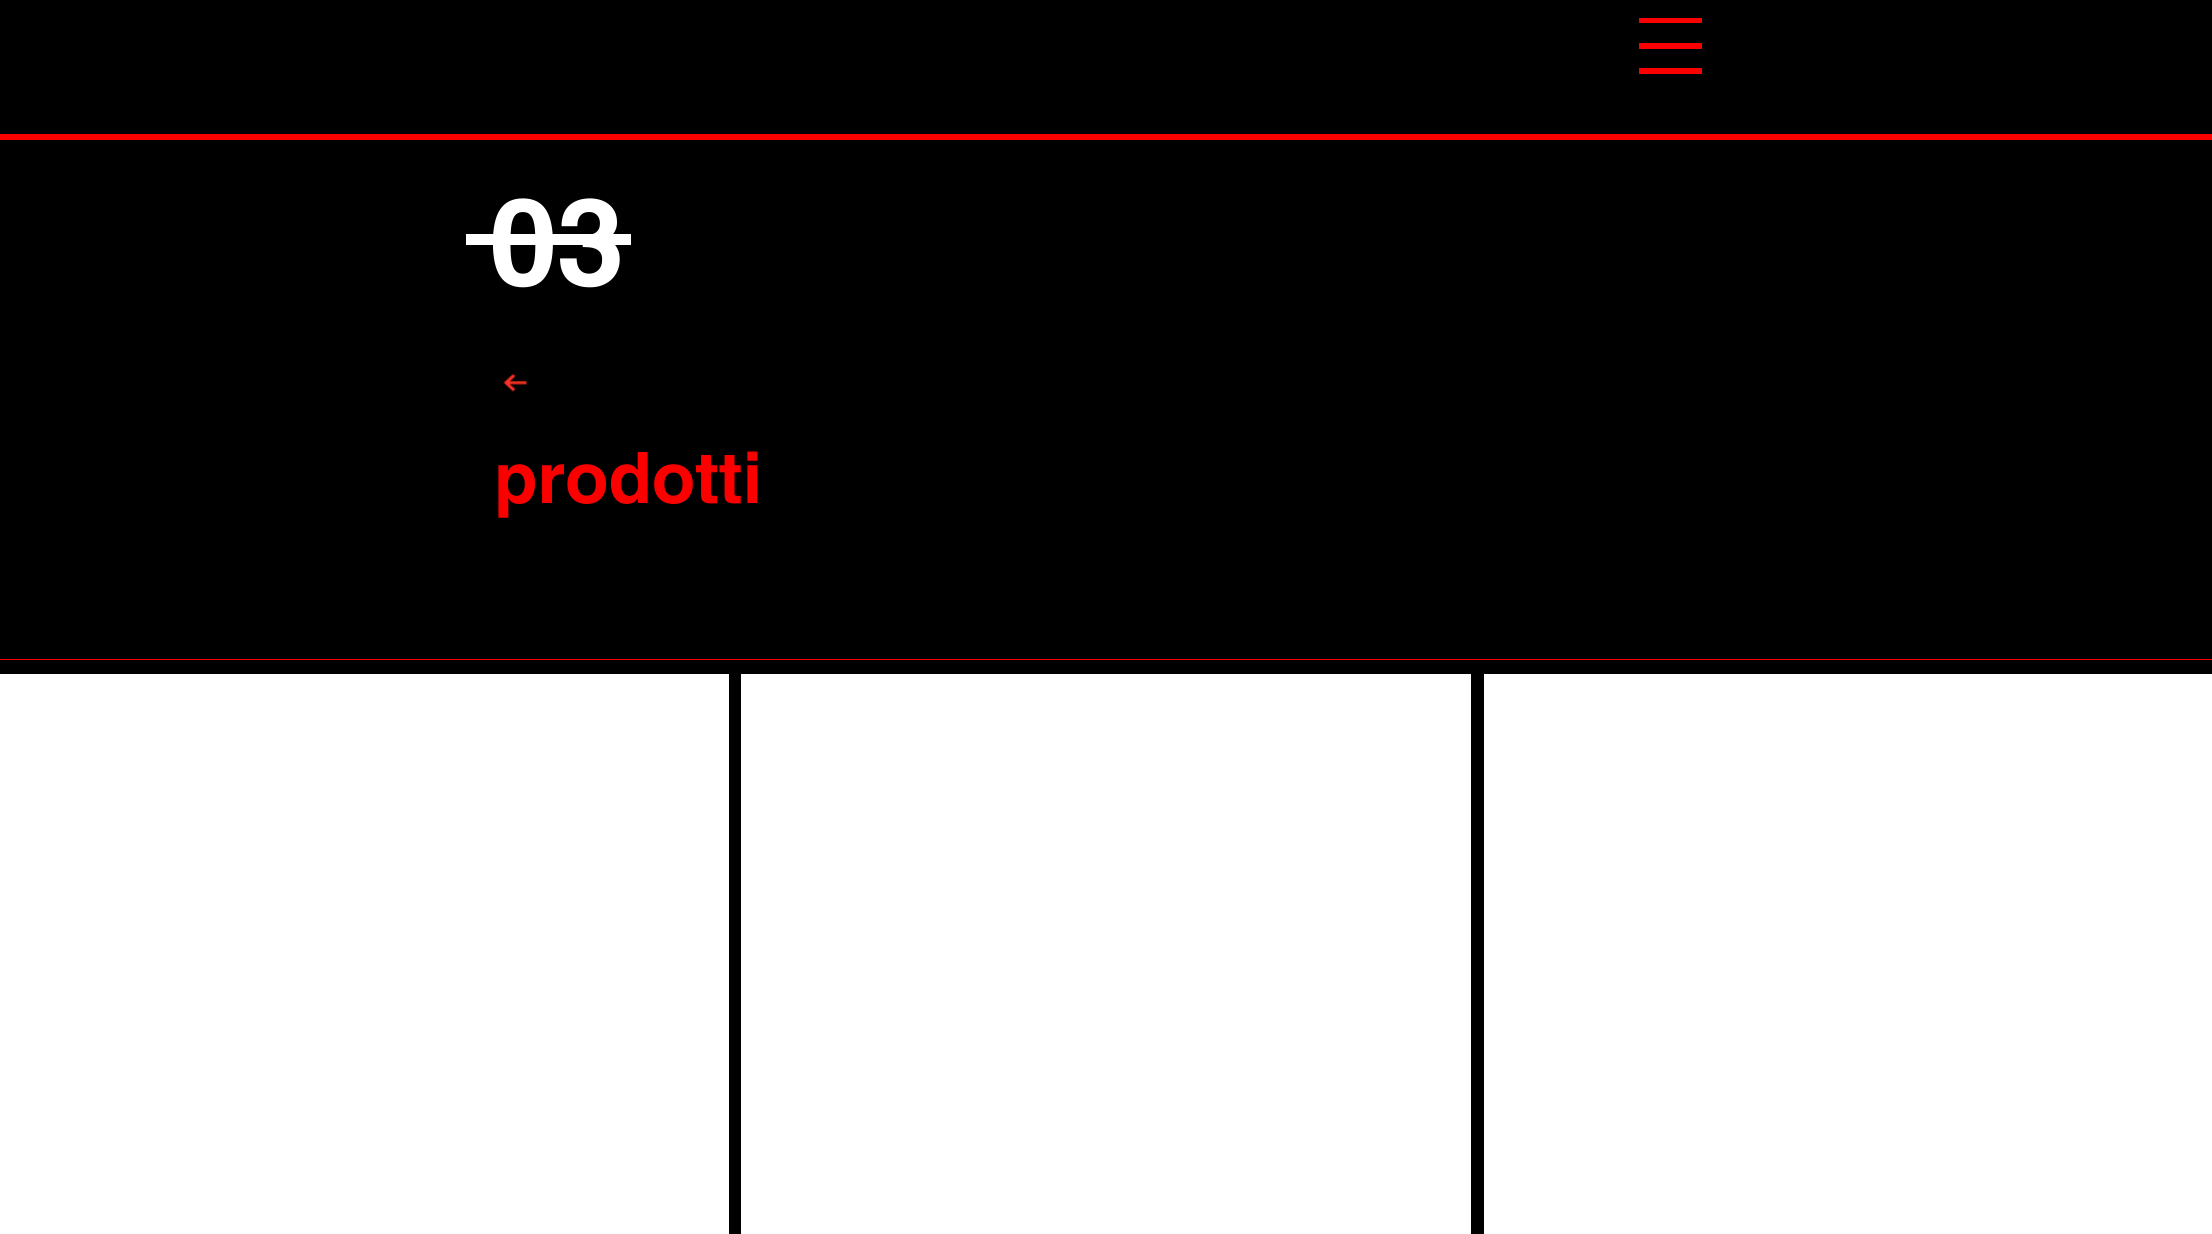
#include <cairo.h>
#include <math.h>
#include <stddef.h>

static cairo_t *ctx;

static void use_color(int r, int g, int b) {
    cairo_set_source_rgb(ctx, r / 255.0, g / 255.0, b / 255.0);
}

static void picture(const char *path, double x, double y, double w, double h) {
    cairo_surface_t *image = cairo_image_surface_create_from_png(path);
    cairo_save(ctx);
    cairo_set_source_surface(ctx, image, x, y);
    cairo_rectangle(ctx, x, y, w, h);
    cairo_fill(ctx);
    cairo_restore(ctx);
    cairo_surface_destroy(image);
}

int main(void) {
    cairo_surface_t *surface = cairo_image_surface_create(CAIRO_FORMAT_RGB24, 2212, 1234);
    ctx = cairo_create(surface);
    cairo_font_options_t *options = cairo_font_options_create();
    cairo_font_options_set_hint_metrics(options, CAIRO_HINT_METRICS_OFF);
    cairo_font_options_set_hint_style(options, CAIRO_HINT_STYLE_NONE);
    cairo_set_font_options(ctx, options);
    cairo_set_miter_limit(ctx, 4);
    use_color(0, 0, 0);
    cairo_paint(ctx);
    use_color(252, 0, 0);
    cairo_rectangle(ctx, 1639, 18, 63, 5);
    cairo_fill(ctx);
    cairo_rectangle(ctx, 1639, 43, 63, 6);
    cairo_fill(ctx);
    cairo_rectangle(ctx, 1639, 68, 63, 6);
    cairo_fill(ctx);
    cairo_rectangle(ctx, 0, 134, 2212, 6);
    cairo_fill(ctx);
    cairo_select_font_face(ctx, "helvetica", CAIRO_FONT_SLANT_NORMAL, CAIRO_FONT_WEIGHT_BOLD);
    cairo_set_font_size(ctx, 122);
    use_color(255, 255, 255);
    cairo_move_to(ctx, 489, 285);
    cairo_show_text(ctx, "03");
    cairo_rectangle(ctx, 466, 234, 165, 11);
    cairo_fill(ctx);
    picture("img1.png", 503, 373, 25, 19);
    cairo_set_font_size(ctx, 71);
    use_color(252, 0, 0);
    cairo_move_to(ctx, 494, 503);
    cairo_show_text(ctx, "prodotti");
    cairo_rectangle(ctx, 0, 659, 2212, 1);
    cairo_fill(ctx);
    use_color(255, 255, 255);
    cairo_rectangle(ctx, 0, 674, 729, 560);
    cairo_fill(ctx);
    cairo_rectangle(ctx, 741, 674, 730, 560);
    cairo_fill(ctx);
    cairo_rectangle(ctx, 1484, 674, 728, 560);
    cairo_fill(ctx);
    cairo_surface_write_to_png(surface, "result.png");
    cairo_font_options_destroy(options);
    cairo_destroy(ctx);
    cairo_surface_destroy(surface);
    return 0;
}
